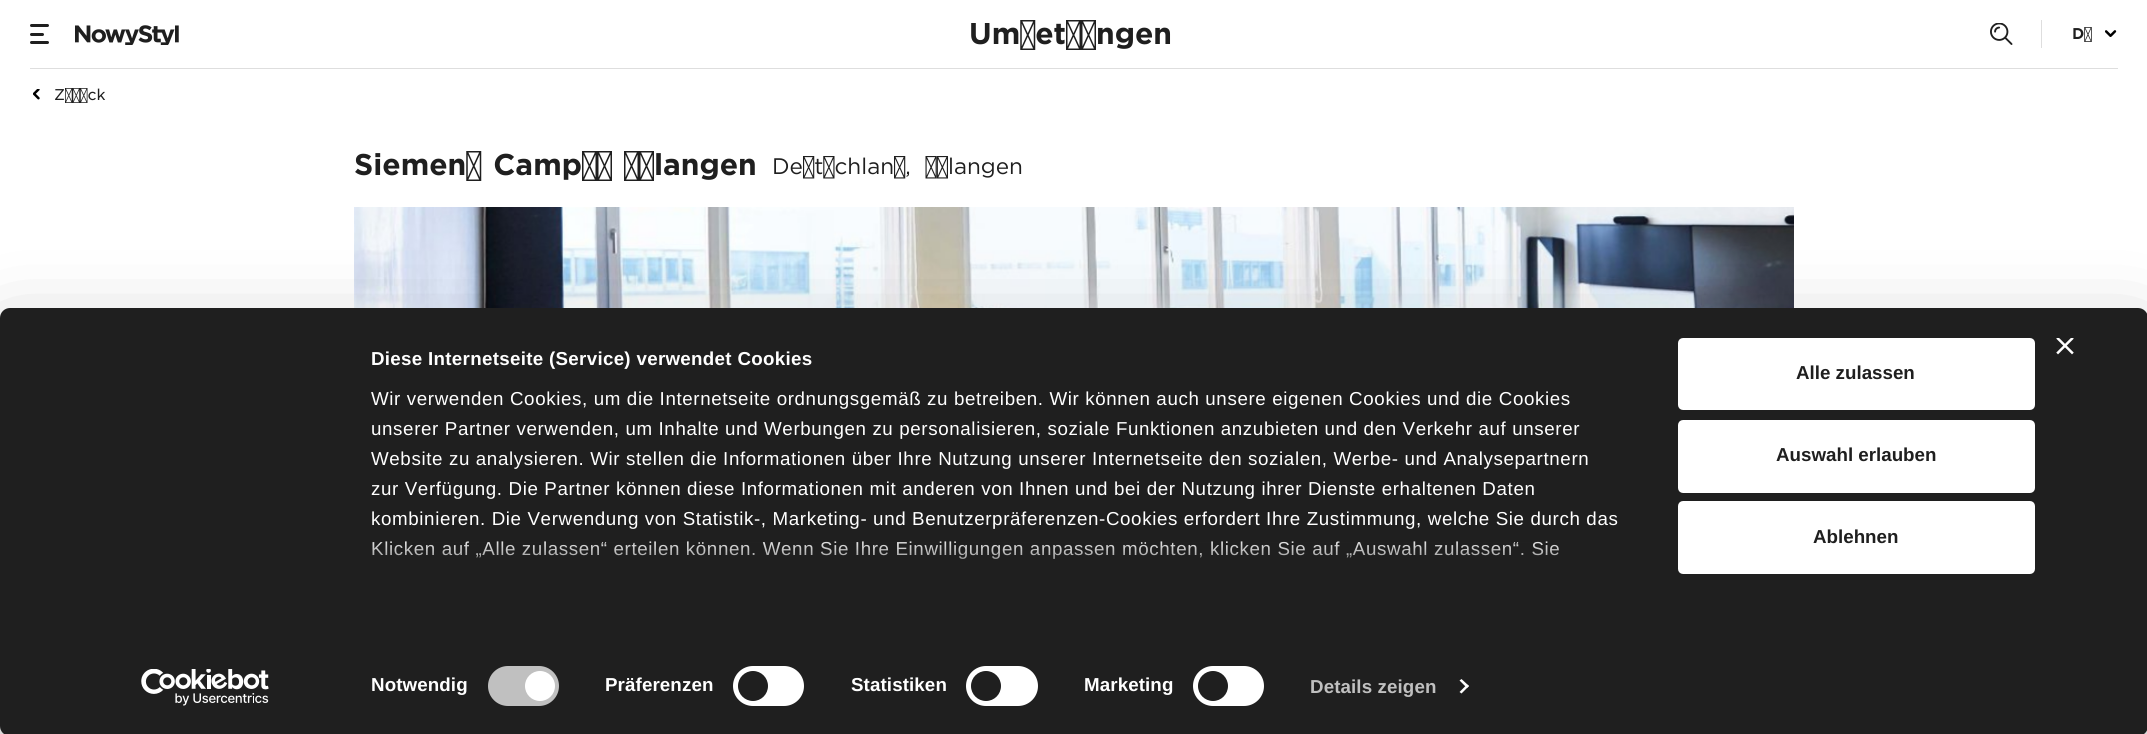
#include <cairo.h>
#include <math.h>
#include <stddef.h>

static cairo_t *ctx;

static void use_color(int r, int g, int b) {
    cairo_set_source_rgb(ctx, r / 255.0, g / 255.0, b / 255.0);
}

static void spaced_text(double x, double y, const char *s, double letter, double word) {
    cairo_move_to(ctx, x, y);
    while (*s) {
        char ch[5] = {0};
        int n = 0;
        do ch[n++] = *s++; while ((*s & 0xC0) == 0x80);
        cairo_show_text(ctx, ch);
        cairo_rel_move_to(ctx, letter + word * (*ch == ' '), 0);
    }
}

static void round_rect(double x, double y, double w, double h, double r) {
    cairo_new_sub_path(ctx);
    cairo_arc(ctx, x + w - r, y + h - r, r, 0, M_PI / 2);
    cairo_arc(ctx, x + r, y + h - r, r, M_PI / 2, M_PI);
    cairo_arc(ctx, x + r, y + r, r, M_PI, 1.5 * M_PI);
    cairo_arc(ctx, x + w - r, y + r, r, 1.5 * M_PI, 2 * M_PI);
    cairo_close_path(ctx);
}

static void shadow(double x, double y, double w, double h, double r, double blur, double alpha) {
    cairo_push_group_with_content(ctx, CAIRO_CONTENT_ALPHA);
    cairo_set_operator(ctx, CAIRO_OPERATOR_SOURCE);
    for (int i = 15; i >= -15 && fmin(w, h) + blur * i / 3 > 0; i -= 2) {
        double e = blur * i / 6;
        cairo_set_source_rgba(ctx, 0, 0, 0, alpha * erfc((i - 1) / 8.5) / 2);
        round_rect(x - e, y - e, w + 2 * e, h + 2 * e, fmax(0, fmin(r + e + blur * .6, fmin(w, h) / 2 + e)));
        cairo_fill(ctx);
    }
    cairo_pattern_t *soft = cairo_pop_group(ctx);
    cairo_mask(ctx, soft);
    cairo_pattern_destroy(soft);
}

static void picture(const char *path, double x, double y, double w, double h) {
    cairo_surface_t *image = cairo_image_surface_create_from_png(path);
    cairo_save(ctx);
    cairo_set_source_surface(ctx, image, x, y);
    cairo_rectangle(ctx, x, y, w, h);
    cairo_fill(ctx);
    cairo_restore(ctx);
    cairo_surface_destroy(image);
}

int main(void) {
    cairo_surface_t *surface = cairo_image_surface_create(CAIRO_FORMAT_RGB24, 2147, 734);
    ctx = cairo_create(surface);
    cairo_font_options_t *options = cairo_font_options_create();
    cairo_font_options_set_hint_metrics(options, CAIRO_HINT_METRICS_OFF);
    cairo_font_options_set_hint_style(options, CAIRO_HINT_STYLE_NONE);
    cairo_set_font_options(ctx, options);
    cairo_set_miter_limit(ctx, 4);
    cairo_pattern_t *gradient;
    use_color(255, 255, 255);
    cairo_paint(ctx);
    use_color(222, 222, 222);
    cairo_rectangle(ctx, 30, 68, 2088, 1);
    cairo_fill(ctx);
    use_color(31, 31, 31);
    round_rect(30, 24, 19, 3, 1.5);
    cairo_fill(ctx);
    round_rect(30, 33, 14, 3, 1.5);
    cairo_fill(ctx);
    round_rect(30, 41, 19, 3, 1.5);
    cairo_fill(ctx);
    picture("img1.png", 75, 25, 104, 20);
    cairo_select_font_face(ctx, "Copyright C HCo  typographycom", CAIRO_FONT_SLANT_NORMAL, CAIRO_FONT_WEIGHT_NORMAL);
    cairo_set_font_size(ctx, 30);
    cairo_move_to(ctx, 969, 44);
    cairo_show_text(ctx, "Umsetzungen");
    picture("img2.png", 1990, 23, 23, 22);
    use_color(222, 222, 222);
    cairo_rectangle(ctx, 2041, 20, 1, 28);
    cairo_fill(ctx);
    cairo_select_font_face(ctx, "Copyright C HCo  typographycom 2", CAIRO_FONT_SLANT_NORMAL, CAIRO_FONT_WEIGHT_NORMAL);
    cairo_set_font_size(ctx, 15);
    use_color(31, 31, 31);
    cairo_move_to(ctx, 2072, 39);
    cairo_show_text(ctx, "DE");
    picture("img3.png", 2105, 30, 12, 7);
    picture("img4.png", 33, 89, 7, 11);
    cairo_select_font_face(ctx, "Copyright C HCo  typographycom 2 Light", CAIRO_FONT_SLANT_NORMAL, CAIRO_FONT_WEIGHT_NORMAL);
    cairo_move_to(ctx, 54, 100);
    cairo_show_text(ctx, "Zurück");
    cairo_select_font_face(ctx, "Copyright C HCo  typographycom", CAIRO_FONT_SLANT_NORMAL, CAIRO_FONT_WEIGHT_NORMAL);
    cairo_set_font_size(ctx, 30);
    spaced_text(354, 175, "Siemens Campus Erlangen", 0, 3);
    cairo_select_font_face(ctx, "Copyright C HCo  typographycom Light", CAIRO_FONT_SLANT_NORMAL, CAIRO_FONT_WEIGHT_NORMAL);
    cairo_set_font_size(ctx, 22.5);
    spaced_text(772, 174, "Deutschland, Erlangen", 0, 8);
    picture("img5.png", 354, 207, 1440, 101);
    use_color(0, 0, 0);
    shadow(0, 345, 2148, 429, 10, 44, 0.3);
    use_color(31, 31, 31);
    round_rect(0, 308, 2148, 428, 10);
    cairo_fill(ctx);
    picture("img6.png", 2056, 338, 18, 17);
    cairo_select_font_face(ctx, "Liberation Sans", CAIRO_FONT_SLANT_NORMAL, CAIRO_FONT_WEIGHT_BOLD);
    cairo_set_font_size(ctx, 18.75);
    use_color(255, 255, 255);
    spaced_text(371, 365, "Diese Internetseite (Service) verwendet Cookies", 0.3, 0);
    cairo_select_font_face(ctx, "Liberation Sans", CAIRO_FONT_SLANT_NORMAL, CAIRO_FONT_WEIGHT_NORMAL);
    spaced_text(371, 405, "Wir verwenden Cookies, um die Internetseite ordnungsgemäß zu betreiben. Wir können auch unsere eigenen Cookies und die Cookies", 0.62, 0);
    spaced_text(371, 435, "unserer Partner verwenden, um Inhalte und Werbungen zu personalisieren, soziale Funktionen anzubieten und den Verkehr auf unserer", 0.62, 0);
    spaced_text(371, 465, "Website zu analysieren. Wir stellen die Informationen über Ihre Nutzung unserer Internetseite den sozialen, Werbe- und Analysepartnern", 0.62, 0);
    spaced_text(371, 495, "zur Verfügung. Die Partner können diese Informationen mit anderen von Ihnen und bei der Nutzung ihrer Dienste erhaltenen Daten", 0.62, 0);
    spaced_text(371, 525, "kombinieren. Die Verwendung von Statistik-, Marketing- und Benutzerpräferenzen-Cookies erfordert Ihre Zustimmung, welche Sie durch das", 0.62, 0);
    spaced_text(371, 555, "Klicken auf „Alle zulassen“ erteilen können. Wenn Sie Ihre Einwilligungen anpassen möchten, klicken Sie auf „Auswahl zulassen“. Sie", 0.62, 0);
    gradient = cairo_pattern_create_linear(994, 628, 994, 534);
    cairo_pattern_add_color_stop_rgba(gradient, 0, 0.122, 0.122, 0.122, 1);
    cairo_pattern_add_color_stop_rgba(gradient, 0.5, 0.122, 0.122, 0.122, 0.8);
    cairo_pattern_add_color_stop_rgba(gradient, 1, 0.122, 0.122, 0.122, 0);
    cairo_set_source(ctx, gradient);
    cairo_pattern_destroy(gradient);
    cairo_rectangle(ctx, 372, 541, 1188, 18);
    cairo_fill(ctx);
    cairo_select_font_face(ctx, "Liberation Sans", CAIRO_FONT_SLANT_NORMAL, CAIRO_FONT_WEIGHT_BOLD);
    use_color(255, 255, 255);
    spaced_text(371, 691, "Notwendig", 0.1, 0);
    use_color(192, 192, 192);
    round_rect(488, 666, 71, 40, 20);
    cairo_fill(ctx);
    use_color(255, 255, 255);
    cairo_arc(ctx, 540, 686, 15, 0, 2 * M_PI);
    cairo_fill(ctx);
    spaced_text(605, 691, "Präferenzen", 0.1, 0);
    round_rect(733, 666, 71, 40, 20);
    cairo_fill(ctx);
    use_color(31, 31, 31);
    cairo_arc(ctx, 753, 686, 15, 0, 2 * M_PI);
    cairo_fill(ctx);
    use_color(255, 255, 255);
    spaced_text(851, 691, "Statistiken", 0.1, 0);
    round_rect(966, 666, 72, 40, 20);
    cairo_fill(ctx);
    use_color(31, 31, 31);
    cairo_arc(ctx, 986, 686, 15, 0, 2 * M_PI);
    cairo_fill(ctx);
    use_color(255, 255, 255);
    spaced_text(1084, 691, "Marketing", 0.1, 0);
    round_rect(1193, 666, 71, 40, 20);
    cairo_fill(ctx);
    use_color(31, 31, 31);
    cairo_arc(ctx, 1213, 686, 15, 0, 2 * M_PI);
    cairo_fill(ctx);
    use_color(192, 192, 192);
    spaced_text(1310, 693, "Details zeigen", 0.1, 0);
    use_color(255, 255, 255);
    cairo_new_path(ctx);
    cairo_move_to(ctx, 1461.5, 679);
    cairo_line_to(ctx, 1469, 686);
    cairo_line_to(ctx, 1467, 688);
    cairo_line_to(ctx, 1459.5, 680.5);
    cairo_close_path(ctx);
    cairo_fill(ctx);
    cairo_new_path(ctx);
    cairo_move_to(ctx, 1467, 684.5);
    cairo_line_to(ctx, 1469, 686);
    cairo_line_to(ctx, 1461.5, 693.5);
    cairo_line_to(ctx, 1459.5, 692);
    cairo_close_path(ctx);
    cairo_fill(ctx);
    round_rect(1679.5, 339.5, 354, 69, 3.5);
    cairo_fill_preserve(ctx);
    cairo_set_line_width(ctx, 3);
    cairo_stroke(ctx);
    use_color(31, 31, 31);
    cairo_move_to(ctx, 1796, 379);
    cairo_show_text(ctx, "Alle zulassen");
    use_color(255, 255, 255);
    round_rect(1679.5, 421.5, 354, 70, 3.5);
    cairo_fill_preserve(ctx);
    cairo_stroke(ctx);
    use_color(31, 31, 31);
    cairo_move_to(ctx, 1776, 461);
    cairo_show_text(ctx, "Auswahl erlauben");
    use_color(255, 255, 255);
    round_rect(1679.5, 502.5, 354, 70, 3.5);
    cairo_fill_preserve(ctx);
    cairo_stroke(ctx);
    use_color(31, 31, 31);
    cairo_move_to(ctx, 1813, 543);
    cairo_show_text(ctx, "Ablehnen");
    picture("img7.png", 141, 669, 128, 37);
    cairo_surface_write_to_png(surface, "result.png");
    cairo_font_options_destroy(options);
    cairo_destroy(ctx);
    cairo_surface_destroy(surface);
    return 0;
}
